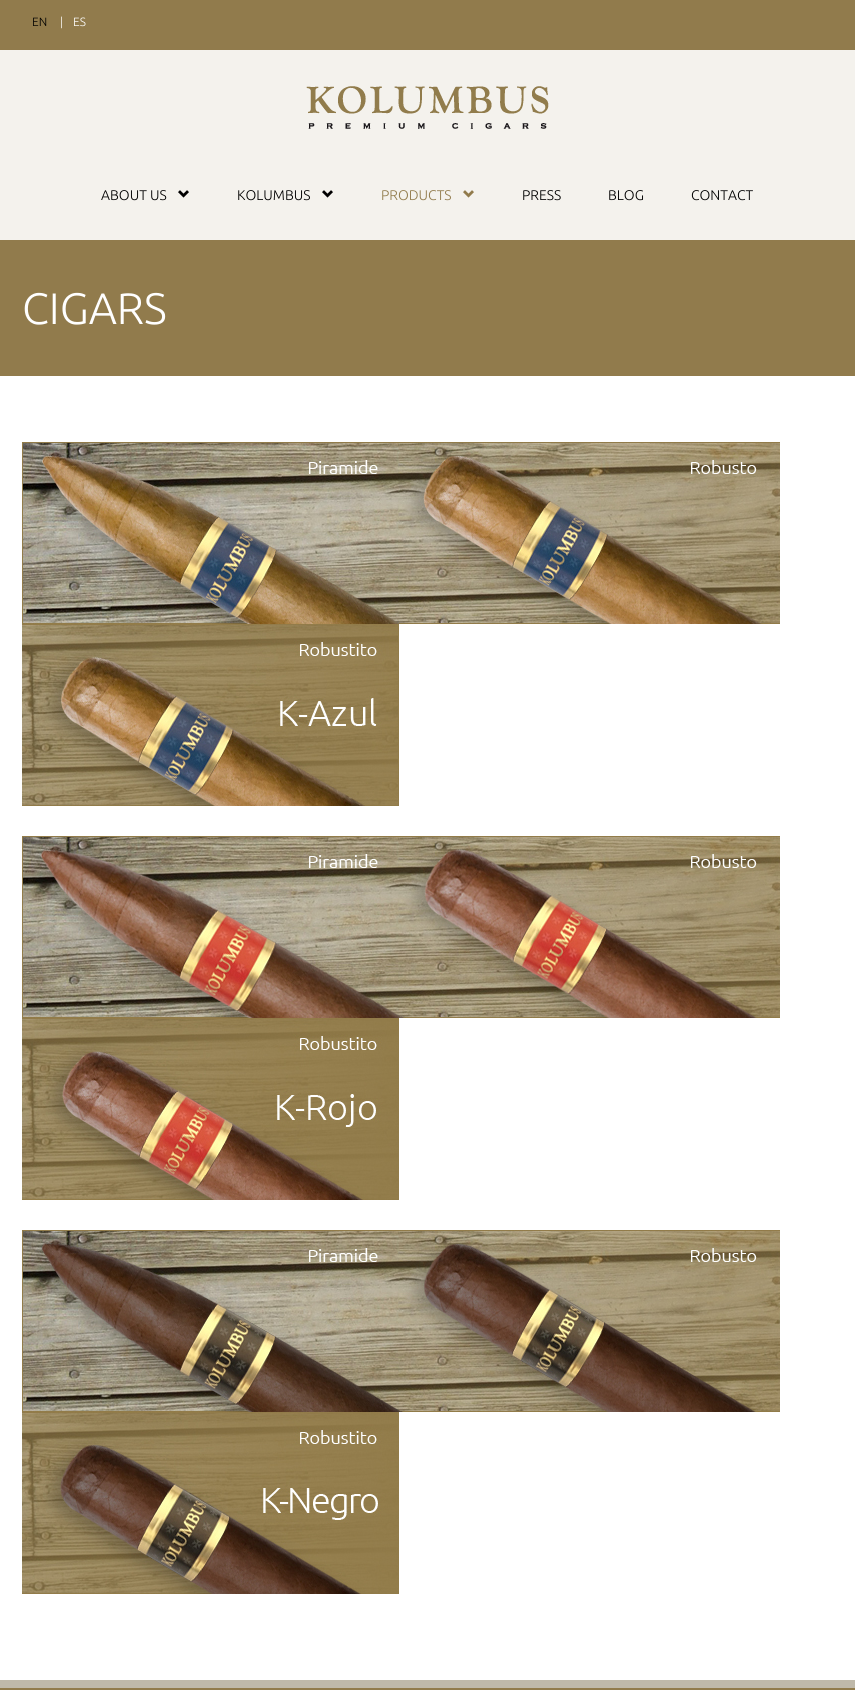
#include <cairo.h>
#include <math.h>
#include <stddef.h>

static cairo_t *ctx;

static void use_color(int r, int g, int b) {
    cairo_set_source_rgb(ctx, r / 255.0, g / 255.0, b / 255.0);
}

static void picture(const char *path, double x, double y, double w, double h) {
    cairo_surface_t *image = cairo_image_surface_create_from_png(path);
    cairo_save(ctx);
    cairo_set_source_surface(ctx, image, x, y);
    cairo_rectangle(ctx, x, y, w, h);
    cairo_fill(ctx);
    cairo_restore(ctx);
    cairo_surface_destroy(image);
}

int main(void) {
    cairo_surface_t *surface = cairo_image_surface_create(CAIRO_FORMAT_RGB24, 855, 1690);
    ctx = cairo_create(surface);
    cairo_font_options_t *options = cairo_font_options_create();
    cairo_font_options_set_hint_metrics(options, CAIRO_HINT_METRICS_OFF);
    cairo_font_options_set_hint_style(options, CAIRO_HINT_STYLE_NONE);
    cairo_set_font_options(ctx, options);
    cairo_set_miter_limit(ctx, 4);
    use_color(255, 255, 255);
    cairo_paint(ctx);
    use_color(145, 123, 76);
    cairo_rectangle(ctx, 0, 0, 855, 376);
    cairo_fill(ctx);
    cairo_select_font_face(ctx, "Ubuntu Light", CAIRO_FONT_SLANT_NORMAL, CAIRO_FONT_WEIGHT_NORMAL);
    cairo_set_font_size(ctx, 12);
    use_color(0, 0, 0);
    cairo_move_to(ctx, 32, 26);
    cairo_show_text(ctx, "EN");
    use_color(255, 255, 255);
    cairo_move_to(ctx, 60, 26);
    cairo_show_text(ctx, "|");
    cairo_move_to(ctx, 73, 26);
    cairo_show_text(ctx, "ES");
    use_color(244, 242, 237);
    cairo_rectangle(ctx, 0, 50, 855, 190);
    cairo_fill(ctx);
    picture("img1.png", 306, 86, 243, 43);
    cairo_set_font_size(ctx, 14);
    use_color(0, 0, 0);
    cairo_move_to(ctx, 101, 200);
    cairo_show_text(ctx, "ABOUT US");
    picture("img2.png", 178, 190, 11, 8);
    cairo_move_to(ctx, 237, 200);
    cairo_show_text(ctx, "KOLUMBUS");
    picture("img2.png", 322, 190, 11, 8);
    use_color(145, 123, 76);
    cairo_move_to(ctx, 381, 200);
    cairo_show_text(ctx, "PRODUCTS");
    picture("img3.png", 463, 190, 11, 8);
    use_color(0, 0, 0);
    cairo_move_to(ctx, 522, 200);
    cairo_show_text(ctx, "PRESS");
    cairo_move_to(ctx, 608, 200);
    cairo_show_text(ctx, "BLOG");
    cairo_move_to(ctx, 691, 200);
    cairo_show_text(ctx, "CONTACT");
    cairo_set_font_size(ctx, 44);
    use_color(255, 255, 255);
    cairo_move_to(ctx, 22, 324);
    cairo_show_text(ctx, "CIGARS");
    picture("img4.png", 22, 442, 379, 182);
    picture("img5.png", 401, 442, 379, 182);
    picture("img6.png", 22, 624, 377, 182);
    picture("img7.png", 22, 836, 379, 182);
    picture("img8.png", 401, 836, 379, 182);
    picture("img9.png", 22, 1018, 377, 182);
    picture("img10.png", 22, 1230, 379, 182);
    picture("img11.png", 401, 1230, 379, 182);
    picture("img12.png", 22, 1412, 377, 182);
    use_color(145, 123, 76);
    cairo_rectangle(ctx, 0, 1688, 855, 2);
    cairo_fill(ctx);
    use_color(191, 185, 170);
    cairo_rectangle(ctx, 0, 1680, 855, 8);
    cairo_fill(ctx);
    cairo_surface_write_to_png(surface, "result.png");
    cairo_font_options_destroy(options);
    cairo_destroy(ctx);
    cairo_surface_destroy(surface);
    return 0;
}
